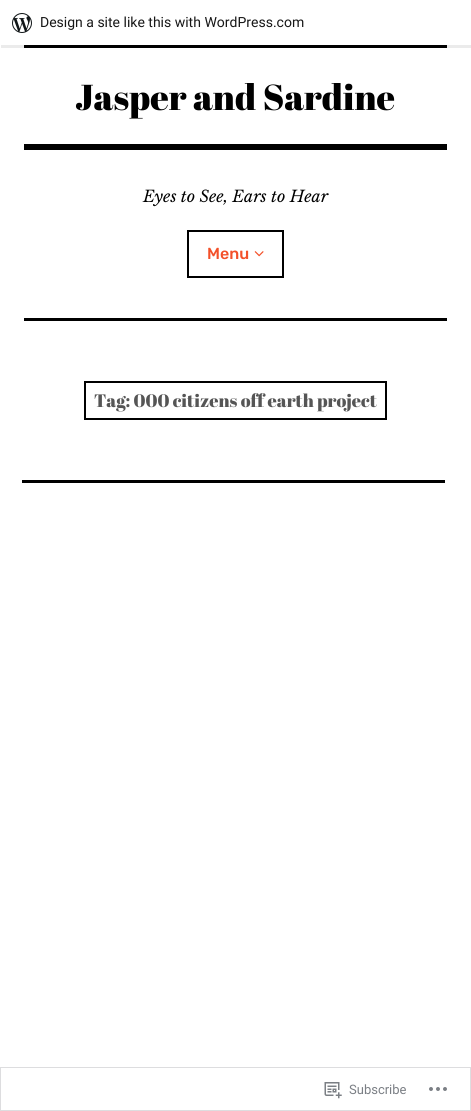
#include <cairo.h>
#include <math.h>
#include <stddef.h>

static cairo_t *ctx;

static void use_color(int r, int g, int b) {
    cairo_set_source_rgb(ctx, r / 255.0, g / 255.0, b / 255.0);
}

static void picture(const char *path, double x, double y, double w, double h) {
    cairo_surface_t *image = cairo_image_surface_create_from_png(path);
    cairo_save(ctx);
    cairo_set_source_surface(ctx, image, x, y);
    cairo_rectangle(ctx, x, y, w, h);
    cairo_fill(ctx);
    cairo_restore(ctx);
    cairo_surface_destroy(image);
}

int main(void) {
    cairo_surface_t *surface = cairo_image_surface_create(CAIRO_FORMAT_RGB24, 471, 1111);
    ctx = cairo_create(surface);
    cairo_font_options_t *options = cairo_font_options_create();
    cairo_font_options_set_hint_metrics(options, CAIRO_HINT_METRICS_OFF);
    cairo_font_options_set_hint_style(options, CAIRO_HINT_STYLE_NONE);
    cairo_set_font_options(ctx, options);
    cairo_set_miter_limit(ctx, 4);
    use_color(255, 255, 255);
    cairo_paint(ctx);
    use_color(0, 0, 0);
    cairo_rectangle(ctx, 24, 45, 423, 3);
    cairo_fill(ctx);
    cairo_set_source_rgba(ctx, 0, 0, 0, 0.08);
    cairo_new_path(ctx);
    cairo_move_to(ctx, 1, 45);
    cairo_line_to(ctx, 1, 48);
    cairo_line_to(ctx, 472, 48);
    cairo_line_to(ctx, 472, 3);
    cairo_line_to(ctx, 471, 3);
    cairo_line_to(ctx, 471, 45);
    cairo_close_path(ctx);
    cairo_fill(ctx);
    picture("img1.png", 12, 13, 20, 20);
    cairo_select_font_face(ctx, "Roboto", CAIRO_FONT_SLANT_NORMAL, CAIRO_FONT_WEIGHT_NORMAL);
    cairo_set_font_size(ctx, 14);
    use_color(23, 23, 23);
    cairo_move_to(ctx, 40, 27);
    cairo_show_text(ctx, "Design a site like this with WordPress.com");
    use_color(0, 0, 0);
    cairo_rectangle(ctx, 24, 144, 423, 6);
    cairo_fill(ctx);
    cairo_select_font_face(ctx, "Abril Fatface", CAIRO_FONT_SLANT_NORMAL, CAIRO_FONT_WEIGHT_NORMAL);
    cairo_set_font_size(ctx, 36);
    cairo_move_to(ctx, 75, 110);
    cairo_show_text(ctx, "Jasper and Sardine");
    cairo_select_font_face(ctx, "Libre Baskerville", CAIRO_FONT_SLANT_ITALIC, CAIRO_FONT_WEIGHT_NORMAL);
    cairo_set_font_size(ctx, 16);
    cairo_move_to(ctx, 143, 202);
    cairo_show_text(ctx, "Eyes to See, Ears to Hear");
    cairo_rectangle(ctx, 188, 231, 95, 46);
    cairo_stroke(ctx);
    cairo_select_font_face(ctx, "Rubik Medium", CAIRO_FONT_SLANT_NORMAL, CAIRO_FONT_WEIGHT_NORMAL);
    use_color(243, 80, 41);
    cairo_move_to(ctx, 207, 259);
    cairo_show_text(ctx, "Menu");
    picture("img2.png", 254, 251, 10, 6);
    use_color(0, 0, 0);
    cairo_rectangle(ctx, 24, 318, 423, 3);
    cairo_fill(ctx);
    cairo_rectangle(ctx, 85, 382, 301, 37);
    cairo_stroke(ctx);
    cairo_select_font_face(ctx, "Abril Fatface", CAIRO_FONT_SLANT_NORMAL, CAIRO_FONT_WEIGHT_NORMAL);
    cairo_set_font_size(ctx, 18);
    use_color(85, 85, 85);
    cairo_move_to(ctx, 94, 407);
    cairo_show_text(ctx, "Tag: 000 citizens off earth project");
    use_color(0, 0, 0);
    cairo_rectangle(ctx, 22, 480, 423, 3);
    cairo_fill(ctx);
    cairo_rectangle(ctx, 0.5, 1067.5, 470, 43);
    use_color(221, 221, 223);
    cairo_set_line_width(ctx, 1);
    cairo_stroke(ctx);
    picture("img3.png", 324, 1082, 18, 17);
    cairo_select_font_face(ctx, "Roboto", CAIRO_FONT_SLANT_NORMAL, CAIRO_FONT_WEIGHT_NORMAL);
    cairo_set_font_size(ctx, 13);
    use_color(123, 127, 133);
    cairo_move_to(ctx, 349, 1094);
    cairo_show_text(ctx, "Subscribe");
    picture("img4.png", 429, 1087, 18, 4);
    cairo_surface_write_to_png(surface, "result.png");
    cairo_font_options_destroy(options);
    cairo_destroy(ctx);
    cairo_surface_destroy(surface);
    return 0;
}
